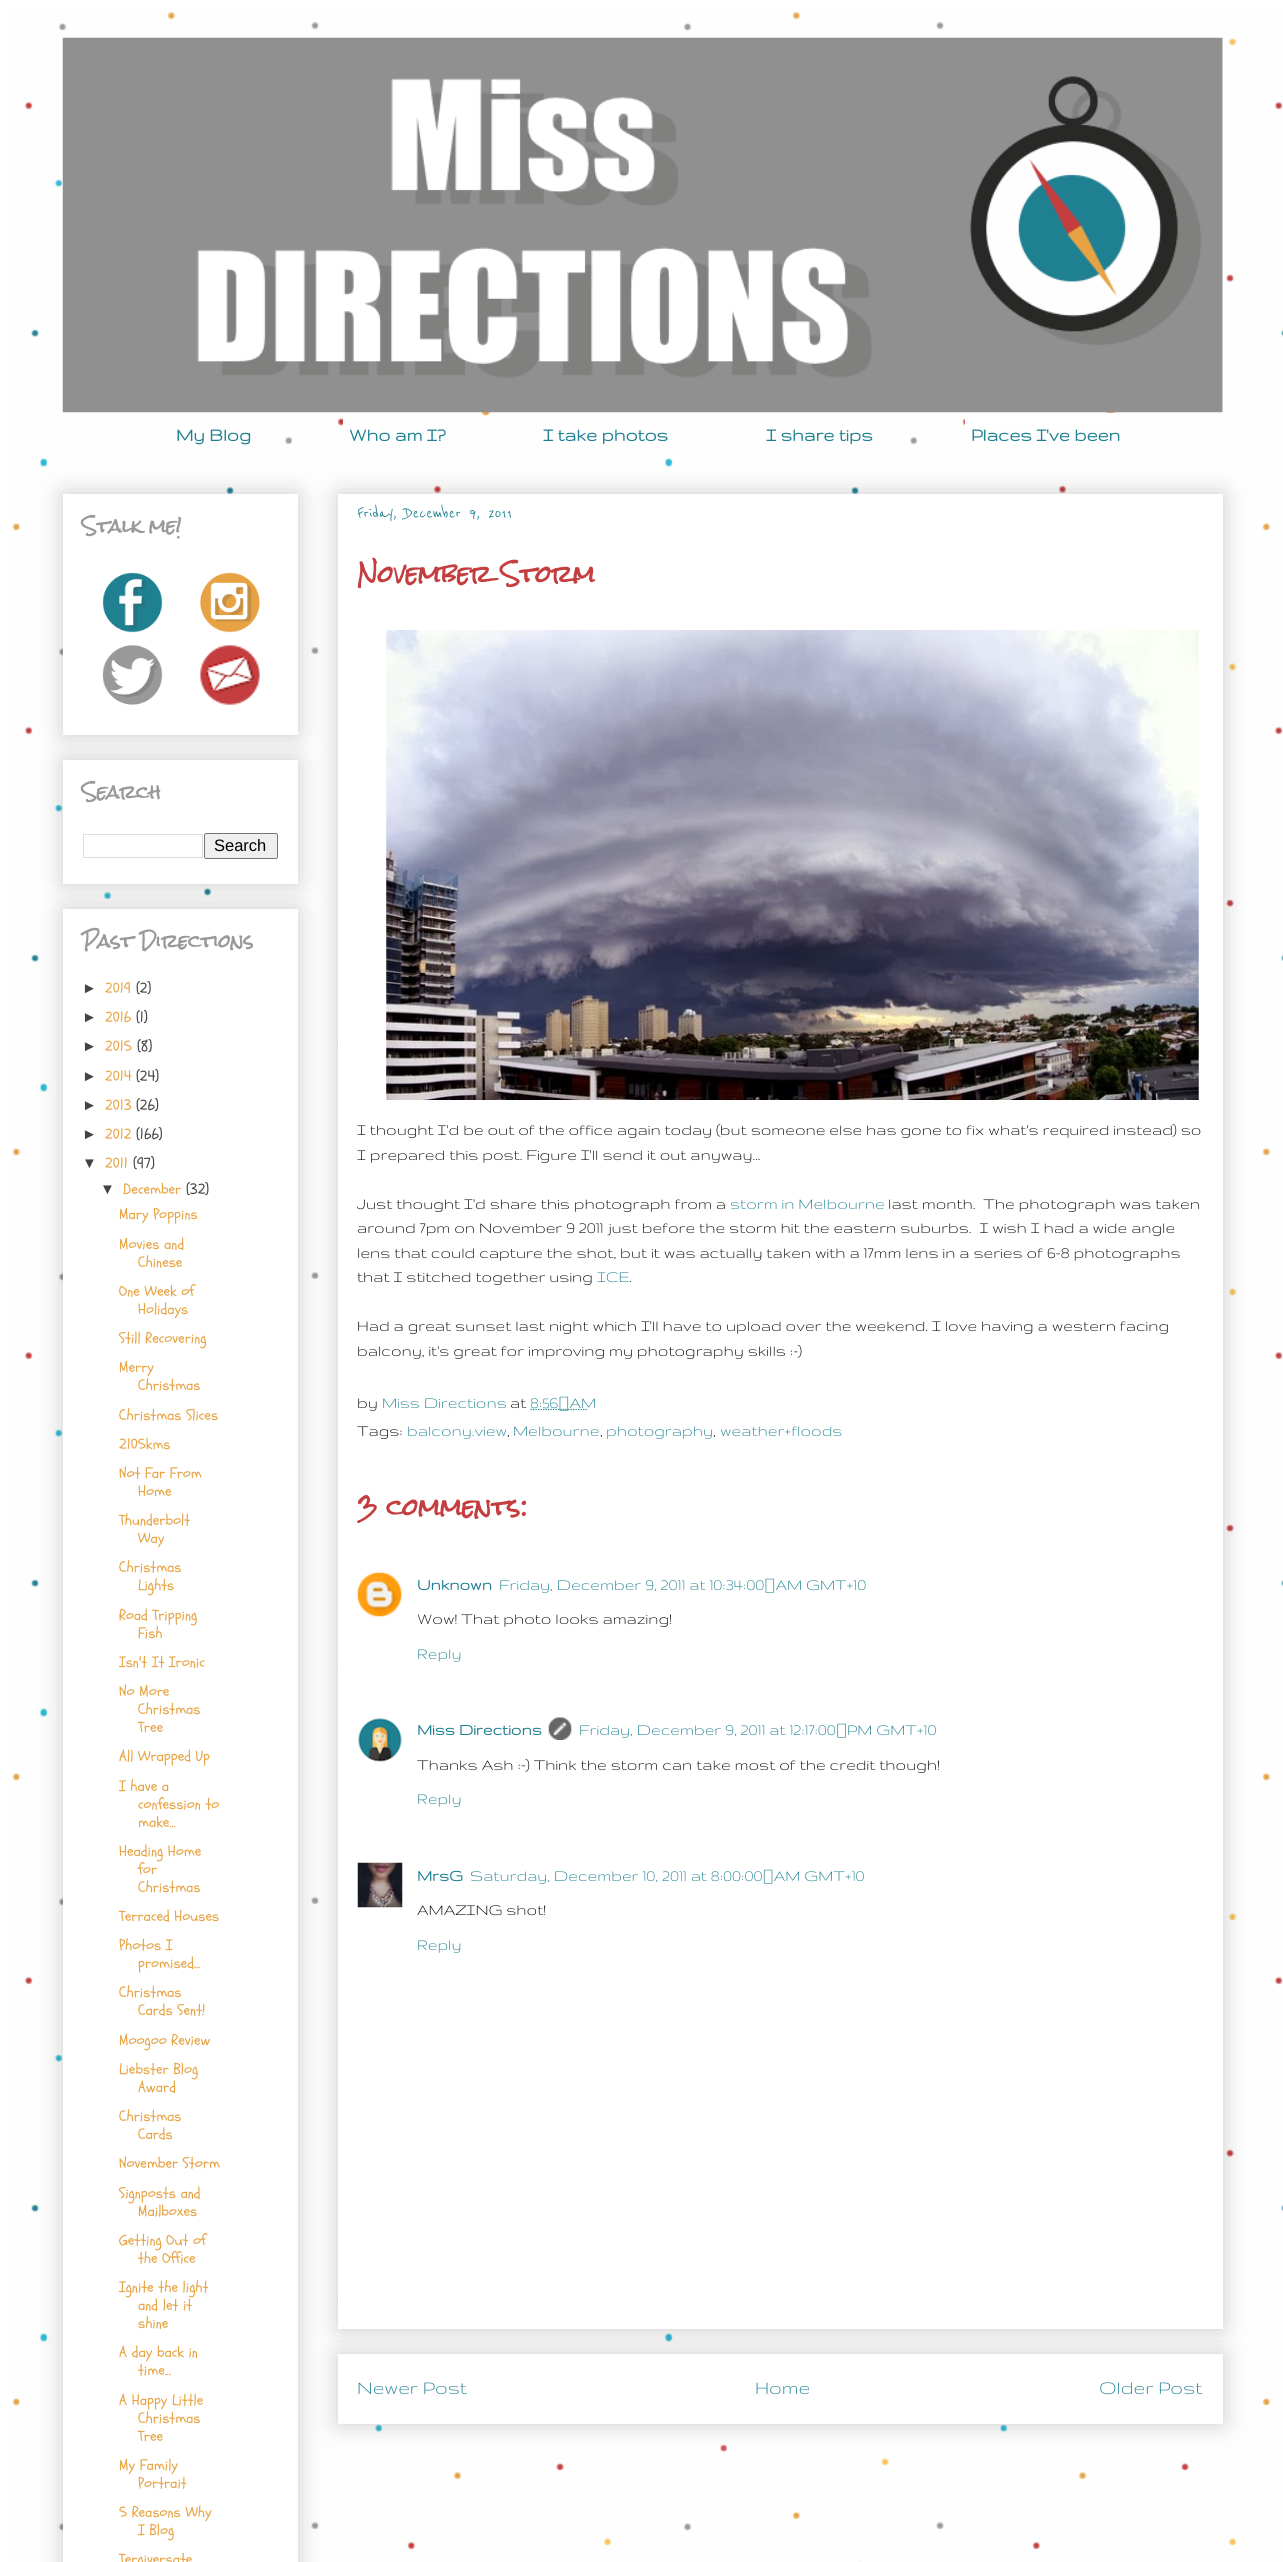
#include <cairo.h>
#include <math.h>
#include <stddef.h>

static cairo_t *ctx;

static void use_color(int r, int g, int b) {
    cairo_set_source_rgb(ctx, r / 255.0, g / 255.0, b / 255.0);
}

static void round_rect(double x, double y, double w, double h, double r) {
    cairo_new_sub_path(ctx);
    cairo_arc(ctx, x + w - r, y + h - r, r, 0, M_PI / 2);
    cairo_arc(ctx, x + r, y + h - r, r, M_PI / 2, M_PI);
    cairo_arc(ctx, x + r, y + r, r, M_PI, 1.5 * M_PI);
    cairo_arc(ctx, x + w - r, y + r, r, 1.5 * M_PI, 2 * M_PI);
    cairo_close_path(ctx);
}

static void shadow(double x, double y, double w, double h, double r, double blur, double alpha) {
    cairo_push_group_with_content(ctx, CAIRO_CONTENT_ALPHA);
    cairo_set_operator(ctx, CAIRO_OPERATOR_SOURCE);
    for (int i = 15; i >= -15 && fmin(w, h) + blur * i / 3 > 0; i -= 2) {
        double e = blur * i / 6;
        cairo_set_source_rgba(ctx, 0, 0, 0, alpha * erfc((i - 1) / 8.5) / 2);
        round_rect(x - e, y - e, w + 2 * e, h + 2 * e, fmax(0, fmin(r + e + blur * .6, fmin(w, h) / 2 + e)));
        cairo_fill(ctx);
    }
    cairo_pattern_t *soft = cairo_pop_group(ctx);
    cairo_mask(ctx, soft);
    cairo_pattern_destroy(soft);
}

static void picture(const char *path, double x, double y, double w, double h) {
    cairo_surface_t *image = cairo_image_surface_create_from_png(path);
    cairo_save(ctx);
    cairo_set_source_surface(ctx, image, x, y);
    cairo_rectangle(ctx, x, y, w, h);
    cairo_fill(ctx);
    cairo_restore(ctx);
    cairo_surface_destroy(image);
}

int main(void) {
    cairo_surface_t *surface = cairo_image_surface_create(CAIRO_FORMAT_RGB24, 1283, 2562);
    ctx = cairo_create(surface);
    cairo_font_options_t *options = cairo_font_options_create();
    cairo_font_options_set_hint_metrics(options, CAIRO_HINT_METRICS_OFF);
    cairo_font_options_set_hint_style(options, CAIRO_HINT_STYLE_NONE);
    cairo_set_font_options(ctx, options);
    cairo_set_miter_limit(ctx, 4);
    use_color(255, 255, 255);
    cairo_paint(ctx);
    picture("img1.png", 12, 11, 1271, 2551);
    picture("img2.png", 62, 37, 1161, 376);
    use_color(255, 255, 255);
    cairo_rectangle(ctx, 178, 421, 11, 10);
    cairo_fill(ctx);
    cairo_select_font_face(ctx, "Gruppo", CAIRO_FONT_SLANT_NORMAL, CAIRO_FONT_WEIGHT_BOLD);
    cairo_set_font_size(ctx, 20);
    use_color(31, 128, 145);
    cairo_move_to(ctx, 176, 441);
    cairo_show_text(ctx, "My Blog");
    use_color(255, 255, 255);
    cairo_rectangle(ctx, 343, 418, 3, 8);
    cairo_fill(ctx);
    use_color(31, 128, 145);
    cairo_move_to(ctx, 349, 441);
    cairo_show_text(ctx, "Who am I?");
    cairo_move_to(ctx, 543, 441);
    cairo_show_text(ctx, "I take photos");
    use_color(255, 255, 255);
    cairo_rectangle(ctx, 803, 421, 11, 10);
    cairo_fill(ctx);
    use_color(31, 128, 145);
    cairo_move_to(ctx, 766, 441);
    cairo_show_text(ctx, "I share tips");
    use_color(255, 255, 255);
    cairo_rectangle(ctx, 965, 413, 151, 14);
    cairo_fill(ctx);
    use_color(31, 128, 145);
    cairo_move_to(ctx, 971, 441);
    cairo_show_text(ctx, "Places I've been");
    use_color(0, 0, 0);
    shadow(63, 494, 235, 241, 0, 12.5, 0.2);
    use_color(255, 255, 255);
    cairo_rectangle(ctx, 63, 494, 235, 241);
    cairo_fill(ctx);
    cairo_select_font_face(ctx, "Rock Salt", CAIRO_FONT_SLANT_NORMAL, CAIRO_FONT_WEIGHT_BOLD);
    cairo_set_font_size(ctx, 17.5);
    use_color(153, 153, 153);
    cairo_move_to(ctx, 82, 533);
    cairo_show_text(ctx, "Stalk me!");
    picture("img3.png", 102, 572, 61, 61);
    picture("img4.png", 200, 572, 60, 61);
    picture("img5.png", 102, 645, 61, 60);
    picture("img6.png", 200, 645, 60, 60);
    use_color(0, 0, 0);
    shadow(63, 760, 235, 124, 0, 12.5, 0.2);
    use_color(255, 255, 255);
    cairo_rectangle(ctx, 63, 760, 235, 124);
    cairo_fill(ctx);
    use_color(153, 153, 153);
    cairo_move_to(ctx, 82, 799);
    cairo_show_text(ctx, "Search");
    cairo_rectangle(ctx, 83.5, 834.5, 119, 23);
    use_color(221, 221, 221);
    cairo_set_line_width(ctx, 1);
    cairo_stroke(ctx);
    use_color(239, 239, 239);
    round_rect(204.5, 833.5, 73, 25, 2);
    cairo_fill_preserve(ctx);
    use_color(118, 118, 118);
    cairo_stroke(ctx);
    cairo_select_font_face(ctx, "Liberation Sans", CAIRO_FONT_SLANT_NORMAL, CAIRO_FONT_WEIGHT_NORMAL);
    cairo_set_font_size(ctx, 16.5);
    use_color(0, 0, 0);
    cairo_move_to(ctx, 214, 851);
    cairo_show_text(ctx, "Search");
    use_color(0, 0, 0);
    shadow(63, 909, 235, 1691, 0, 12.5, 0.2);
    use_color(255, 255, 255);
    cairo_rectangle(ctx, 63, 909, 235, 1653);
    cairo_fill(ctx);
    cairo_select_font_face(ctx, "Rock Salt", CAIRO_FONT_SLANT_NORMAL, CAIRO_FONT_WEIGHT_BOLD);
    cairo_set_font_size(ctx, 17.5);
    use_color(153, 153, 153);
    cairo_move_to(ctx, 82, 948);
    cairo_show_text(ctx, "Past Directions");
    cairo_select_font_face(ctx, "Liberation Sans", CAIRO_FONT_SLANT_NORMAL, CAIRO_FONT_WEIGHT_NORMAL);
    cairo_set_font_size(ctx, 15);
    use_color(68, 68, 68);
    cairo_move_to(ctx, 82, 993);
    cairo_show_text(ctx, "►");
    cairo_select_font_face(ctx, "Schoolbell", CAIRO_FONT_SLANT_NORMAL, CAIRO_FONT_WEIGHT_NORMAL);
    use_color(231, 163, 67);
    cairo_move_to(ctx, 105, 993);
    cairo_show_text(ctx, "2019");
    use_color(68, 68, 68);
    cairo_move_to(ctx, 136, 993);
    cairo_show_text(ctx, "(2)");
    cairo_select_font_face(ctx, "Liberation Sans", CAIRO_FONT_SLANT_NORMAL, CAIRO_FONT_WEIGHT_NORMAL);
    cairo_move_to(ctx, 82, 1022);
    cairo_show_text(ctx, "►");
    cairo_select_font_face(ctx, "Schoolbell", CAIRO_FONT_SLANT_NORMAL, CAIRO_FONT_WEIGHT_NORMAL);
    use_color(231, 163, 67);
    cairo_move_to(ctx, 105, 1022);
    cairo_show_text(ctx, "2016");
    use_color(68, 68, 68);
    cairo_move_to(ctx, 136, 1022);
    cairo_show_text(ctx, "(1)");
    cairo_select_font_face(ctx, "Liberation Sans", CAIRO_FONT_SLANT_NORMAL, CAIRO_FONT_WEIGHT_NORMAL);
    cairo_move_to(ctx, 82, 1051);
    cairo_show_text(ctx, "►");
    cairo_select_font_face(ctx, "Schoolbell", CAIRO_FONT_SLANT_NORMAL, CAIRO_FONT_WEIGHT_NORMAL);
    use_color(231, 163, 67);
    cairo_move_to(ctx, 105, 1051);
    cairo_show_text(ctx, "2015");
    use_color(68, 68, 68);
    cairo_move_to(ctx, 137, 1051);
    cairo_show_text(ctx, "(8)");
    cairo_select_font_face(ctx, "Liberation Sans", CAIRO_FONT_SLANT_NORMAL, CAIRO_FONT_WEIGHT_NORMAL);
    cairo_move_to(ctx, 82, 1081);
    cairo_show_text(ctx, "►");
    cairo_select_font_face(ctx, "Schoolbell", CAIRO_FONT_SLANT_NORMAL, CAIRO_FONT_WEIGHT_NORMAL);
    use_color(231, 163, 67);
    cairo_move_to(ctx, 105, 1081);
    cairo_show_text(ctx, "2014");
    use_color(68, 68, 68);
    cairo_move_to(ctx, 136, 1081);
    cairo_show_text(ctx, "(24)");
    cairo_select_font_face(ctx, "Liberation Sans", CAIRO_FONT_SLANT_NORMAL, CAIRO_FONT_WEIGHT_NORMAL);
    cairo_move_to(ctx, 82, 1110);
    cairo_show_text(ctx, "►");
    cairo_select_font_face(ctx, "Schoolbell", CAIRO_FONT_SLANT_NORMAL, CAIRO_FONT_WEIGHT_NORMAL);
    use_color(231, 163, 67);
    cairo_move_to(ctx, 105, 1110);
    cairo_show_text(ctx, "2013");
    use_color(68, 68, 68);
    cairo_move_to(ctx, 136, 1110);
    cairo_show_text(ctx, "(26)");
    cairo_select_font_face(ctx, "Liberation Sans", CAIRO_FONT_SLANT_NORMAL, CAIRO_FONT_WEIGHT_NORMAL);
    cairo_move_to(ctx, 82, 1139);
    cairo_show_text(ctx, "►");
    cairo_select_font_face(ctx, "Schoolbell", CAIRO_FONT_SLANT_NORMAL, CAIRO_FONT_WEIGHT_NORMAL);
    use_color(231, 163, 67);
    cairo_move_to(ctx, 105, 1139);
    cairo_show_text(ctx, "2012");
    use_color(68, 68, 68);
    cairo_move_to(ctx, 136, 1139);
    cairo_show_text(ctx, "(166)");
    cairo_select_font_face(ctx, "Liberation Sans", CAIRO_FONT_SLANT_NORMAL, CAIRO_FONT_WEIGHT_NORMAL);
    cairo_move_to(ctx, 82, 1168);
    cairo_show_text(ctx, "▼");
    cairo_select_font_face(ctx, "Schoolbell", CAIRO_FONT_SLANT_NORMAL, CAIRO_FONT_WEIGHT_NORMAL);
    use_color(231, 163, 67);
    cairo_move_to(ctx, 105, 1168);
    cairo_show_text(ctx, "2011");
    use_color(68, 68, 68);
    cairo_move_to(ctx, 133, 1168);
    cairo_show_text(ctx, "(97)");
    cairo_select_font_face(ctx, "Liberation Sans", CAIRO_FONT_SLANT_NORMAL, CAIRO_FONT_WEIGHT_NORMAL);
    cairo_move_to(ctx, 100, 1194);
    cairo_show_text(ctx, "▼");
    cairo_select_font_face(ctx, "Schoolbell", CAIRO_FONT_SLANT_NORMAL, CAIRO_FONT_WEIGHT_NORMAL);
    use_color(231, 163, 67);
    cairo_move_to(ctx, 123, 1194);
    cairo_show_text(ctx, "December");
    use_color(68, 68, 68);
    cairo_move_to(ctx, 186, 1194);
    cairo_show_text(ctx, "(32)");
    use_color(231, 163, 67);
    cairo_move_to(ctx, 119, 1219);
    cairo_show_text(ctx, "Mary Poppins");
    cairo_move_to(ctx, 119, 1249);
    cairo_show_text(ctx, "Movies and");
    cairo_move_to(ctx, 138, 1267);
    cairo_show_text(ctx, "Chinese");
    cairo_move_to(ctx, 119, 1296);
    cairo_show_text(ctx, "One Week of");
    cairo_move_to(ctx, 138, 1314);
    cairo_show_text(ctx, "Holidays");
    cairo_move_to(ctx, 119, 1343);
    cairo_show_text(ctx, "Still Recovering");
    cairo_move_to(ctx, 119, 1372);
    cairo_show_text(ctx, "Merry");
    cairo_move_to(ctx, 138, 1390);
    cairo_show_text(ctx, "Christmas");
    cairo_move_to(ctx, 119, 1420);
    cairo_show_text(ctx, "Christmas Slices");
    cairo_move_to(ctx, 119, 1449);
    cairo_show_text(ctx, "2105kms");
    cairo_move_to(ctx, 119, 1478);
    cairo_show_text(ctx, "Not Far From");
    cairo_move_to(ctx, 138, 1496);
    cairo_show_text(ctx, "Home");
    cairo_move_to(ctx, 119, 1525);
    cairo_show_text(ctx, "Thunderbolt");
    cairo_move_to(ctx, 138, 1543);
    cairo_show_text(ctx, "Way");
    cairo_move_to(ctx, 119, 1572);
    cairo_show_text(ctx, "Christmas");
    cairo_move_to(ctx, 138, 1590);
    cairo_show_text(ctx, "Lights");
    cairo_move_to(ctx, 119, 1620);
    cairo_show_text(ctx, "Road Tripping");
    cairo_move_to(ctx, 138, 1638);
    cairo_show_text(ctx, "Fish");
    cairo_move_to(ctx, 119, 1667);
    cairo_show_text(ctx, "Isn't It Ironic");
    cairo_move_to(ctx, 119, 1696);
    cairo_show_text(ctx, "No More");
    cairo_move_to(ctx, 138, 1714);
    cairo_show_text(ctx, "Christmas");
    cairo_move_to(ctx, 138, 1732);
    cairo_show_text(ctx, "Tree");
    cairo_move_to(ctx, 119, 1761);
    cairo_show_text(ctx, "All Wrapped Up");
    cairo_move_to(ctx, 119, 1791);
    cairo_show_text(ctx, "I have a");
    cairo_move_to(ctx, 138, 1809);
    cairo_show_text(ctx, "confession to");
    cairo_move_to(ctx, 138, 1827);
    cairo_show_text(ctx, "make...");
    cairo_move_to(ctx, 119, 1856);
    cairo_show_text(ctx, "Heading Home");
    cairo_move_to(ctx, 138, 1874);
    cairo_show_text(ctx, "for");
    cairo_move_to(ctx, 138, 1892);
    cairo_show_text(ctx, "Christmas");
    cairo_move_to(ctx, 119, 1921);
    cairo_show_text(ctx, "Terraced Houses");
    cairo_move_to(ctx, 119, 1950);
    cairo_show_text(ctx, "Photos I");
    cairo_move_to(ctx, 138, 1968);
    cairo_show_text(ctx, "promised...");
    cairo_move_to(ctx, 119, 1997);
    cairo_show_text(ctx, "Christmas");
    cairo_move_to(ctx, 138, 2015);
    cairo_show_text(ctx, "Cards Sent!");
    cairo_move_to(ctx, 119, 2045);
    cairo_show_text(ctx, "Moogoo Review");
    cairo_move_to(ctx, 119, 2074);
    cairo_show_text(ctx, "Liebster Blog");
    cairo_move_to(ctx, 138, 2092);
    cairo_show_text(ctx, "Award");
    cairo_move_to(ctx, 119, 2121);
    cairo_show_text(ctx, "Christmas");
    cairo_move_to(ctx, 138, 2139);
    cairo_show_text(ctx, "Cards");
    cairo_move_to(ctx, 119, 2168);
    cairo_show_text(ctx, "November Storm");
    cairo_move_to(ctx, 119, 2198);
    cairo_show_text(ctx, "Signposts and");
    cairo_move_to(ctx, 138, 2216);
    cairo_show_text(ctx, "Mailboxes");
    cairo_move_to(ctx, 119, 2245);
    cairo_show_text(ctx, "Getting Out of");
    cairo_move_to(ctx, 138, 2263);
    cairo_show_text(ctx, "the Office");
    cairo_move_to(ctx, 119, 2292);
    cairo_show_text(ctx, "Ignite the light");
    cairo_move_to(ctx, 138, 2310);
    cairo_show_text(ctx, "and let it");
    cairo_move_to(ctx, 138, 2328);
    cairo_show_text(ctx, "shine");
    cairo_move_to(ctx, 119, 2357);
    cairo_show_text(ctx, "A day back in");
    cairo_move_to(ctx, 138, 2375);
    cairo_show_text(ctx, "time...");
    cairo_move_to(ctx, 119, 2405);
    cairo_show_text(ctx, "A Happy Little");
    cairo_move_to(ctx, 138, 2423);
    cairo_show_text(ctx, "Christmas");
    cairo_move_to(ctx, 138, 2441);
    cairo_show_text(ctx, "Tree");
    cairo_move_to(ctx, 119, 2470);
    cairo_show_text(ctx, "My Family");
    cairo_move_to(ctx, 138, 2488);
    cairo_show_text(ctx, "Portrait");
    cairo_move_to(ctx, 119, 2517);
    cairo_show_text(ctx, "5 Reasons Why");
    cairo_move_to(ctx, 138, 2535);
    cairo_show_text(ctx, "I Blog");
    cairo_move_to(ctx, 119, 2564);
    cairo_show_text(ctx, "Tergiversate");
    use_color(0, 0, 0);
    shadow(338, 2354, 885, 70, 0, 12.5, 0.2);
    use_color(255, 255, 255);
    cairo_rectangle(ctx, 338, 2354, 885, 70);
    cairo_fill(ctx);
    use_color(0, 0, 0);
    shadow(338, 494, 885, 1835, 0, 12.5, 0.2);
    use_color(255, 255, 255);
    cairo_rectangle(ctx, 338, 494, 885, 1835);
    cairo_fill(ctx);
    cairo_select_font_face(ctx, "Reenie Beanie Medium", CAIRO_FONT_SLANT_NORMAL, CAIRO_FONT_WEIGHT_NORMAL);
    cairo_set_font_size(ctx, 18.75);
    use_color(31, 128, 145);
    cairo_move_to(ctx, 357, 518);
    cairo_show_text(ctx, "Friday, December 9, 2011");
    cairo_select_font_face(ctx, "Rock Salt", CAIRO_FONT_SLANT_NORMAL, CAIRO_FONT_WEIGHT_BOLD);
    cairo_set_font_size(ctx, 22.5);
    use_color(196, 62, 63);
    cairo_move_to(ctx, 357, 583);
    cairo_show_text(ctx, "November Storm");
    picture("img7.png", 386, 630, 813, 470);
    cairo_select_font_face(ctx, "Gruppo", CAIRO_FONT_SLANT_NORMAL, CAIRO_FONT_WEIGHT_NORMAL);
    cairo_set_font_size(ctx, 17.5);
    use_color(0, 0, 0);
    cairo_move_to(ctx, 357, 1135);
    cairo_show_text(ctx, "I thought I'd be out of the office again today (but someone else has gone to fix what's required instead) so");
    cairo_move_to(ctx, 357, 1160);
    cairo_show_text(ctx, "I prepared this post. Figure I'll send it out anyway...");
    cairo_move_to(ctx, 357, 1209);
    cairo_show_text(ctx, "Just thought I'd share this photograph from a");
    use_color(31, 128, 145);
    cairo_move_to(ctx, 730, 1209);
    cairo_show_text(ctx, "storm in Melbourne");
    use_color(0, 0, 0);
    cairo_move_to(ctx, 888, 1209);
    cairo_show_text(ctx, "last month.  The photograph was taken");
    cairo_move_to(ctx, 357, 1233);
    cairo_show_text(ctx, "around 7pm on November 9 2011 just before the storm hit the eastern suburbs.  I wish I had a wide angle");
    cairo_move_to(ctx, 357, 1258);
    cairo_show_text(ctx, "lens that could capture the shot, but it was actually taken with a 17mm lens in a series of 6-8 photographs");
    cairo_move_to(ctx, 357, 1282);
    cairo_show_text(ctx, "that I stitched together using");
    use_color(31, 128, 145);
    cairo_move_to(ctx, 597, 1282);
    cairo_show_text(ctx, "ICE");
    use_color(0, 0, 0);
    cairo_move_to(ctx, 629, 1282);
    cairo_show_text(ctx, ".");
    cairo_move_to(ctx, 357, 1331);
    cairo_show_text(ctx, "Had a great sunset last night which I'll have to upload over the weekend. I love having a western facing");
    cairo_move_to(ctx, 357, 1356);
    cairo_show_text(ctx, "balcony, it's great for improving my photography skills :-)");
    cairo_move_to(ctx, 357, 1408);
    cairo_show_text(ctx, "by");
    use_color(31, 128, 145);
    cairo_move_to(ctx, 382, 1408);
    cairo_show_text(ctx, "Miss Directions");
    use_color(0, 0, 0);
    cairo_move_to(ctx, 510, 1408);
    cairo_show_text(ctx, "at");
    cairo_new_path(ctx);
    cairo_move_to(ctx, 530.5, 1409.5);
    cairo_line_to(ctx, 587.5, 1409.5);
    use_color(31, 128, 145);
    cairo_set_line_width(ctx, 1.2);
    cairo_set_dash(ctx, (double[]){1.25, 1.25}, 2, 0);
    cairo_stroke(ctx);
    cairo_move_to(ctx, 530, 1408);
    cairo_show_text(ctx, "8:56 AM");
    use_color(0, 0, 0);
    cairo_move_to(ctx, 357, 1436);
    cairo_show_text(ctx, "Tags:");
    use_color(31, 128, 145);
    cairo_move_to(ctx, 407, 1436);
    cairo_show_text(ctx, "balcony.view");
    use_color(0, 0, 0);
    cairo_move_to(ctx, 507, 1436);
    cairo_show_text(ctx, ",");
    use_color(31, 128, 145);
    cairo_move_to(ctx, 513, 1436);
    cairo_show_text(ctx, "Melbourne");
    use_color(0, 0, 0);
    cairo_move_to(ctx, 600, 1436);
    cairo_show_text(ctx, ",");
    use_color(31, 128, 145);
    cairo_move_to(ctx, 606, 1436);
    cairo_show_text(ctx, "photography");
    use_color(0, 0, 0);
    cairo_move_to(ctx, 713, 1436);
    cairo_show_text(ctx, ",");
    use_color(31, 128, 145);
    cairo_move_to(ctx, 720, 1436);
    cairo_show_text(ctx, "weather+floods");
    cairo_select_font_face(ctx, "Rock Salt", CAIRO_FONT_SLANT_NORMAL, CAIRO_FONT_WEIGHT_BOLD);
    cairo_set_font_size(ctx, 22.5);
    use_color(196, 62, 63);
    cairo_move_to(ctx, 357, 1516);
    cairo_show_text(ctx, "3 comments:");
    picture("img8.png", 357, 1572, 45, 45);
    cairo_select_font_face(ctx, "Gruppo", CAIRO_FONT_SLANT_NORMAL, CAIRO_FONT_WEIGHT_BOLD);
    cairo_set_font_size(ctx, 17.5);
    use_color(31, 128, 145);
    cairo_move_to(ctx, 417, 1590);
    cairo_show_text(ctx, "Unknown");
    cairo_select_font_face(ctx, "Gruppo", CAIRO_FONT_SLANT_NORMAL, CAIRO_FONT_WEIGHT_NORMAL);
    cairo_move_to(ctx, 499, 1590);
    cairo_show_text(ctx, "Friday, December 9, 2011 at 10:34:00 AM GMT+10");
    use_color(0, 0, 0);
    cairo_move_to(ctx, 417, 1624);
    cairo_show_text(ctx, "Wow! That photo looks amazing!");
    use_color(31, 128, 145);
    cairo_move_to(ctx, 417, 1659);
    cairo_show_text(ctx, "Reply");
    picture("img9.png", 358, 1718, 44, 44);
    cairo_select_font_face(ctx, "Gruppo", CAIRO_FONT_SLANT_NORMAL, CAIRO_FONT_WEIGHT_BOLD);
    cairo_move_to(ctx, 417, 1735);
    cairo_show_text(ctx, "Miss Directions");
    picture("img10.png", 548, 1717, 24, 23);
    cairo_select_font_face(ctx, "Gruppo", CAIRO_FONT_SLANT_NORMAL, CAIRO_FONT_WEIGHT_NORMAL);
    cairo_move_to(ctx, 579, 1735);
    cairo_show_text(ctx, "Friday, December 9, 2011 at 12:17:00 PM GMT+10");
    use_color(0, 0, 0);
    cairo_move_to(ctx, 417, 1770);
    cairo_show_text(ctx, "Thanks Ash :-) Think the storm can take most of the credit though!");
    use_color(31, 128, 145);
    cairo_move_to(ctx, 417, 1804);
    cairo_show_text(ctx, "Reply");
    picture("img11.png", 357, 1862, 46, 46);
    cairo_select_font_face(ctx, "Gruppo", CAIRO_FONT_SLANT_NORMAL, CAIRO_FONT_WEIGHT_BOLD);
    cairo_move_to(ctx, 417, 1881);
    cairo_show_text(ctx, "MrsG");
    cairo_select_font_face(ctx, "Gruppo", CAIRO_FONT_SLANT_NORMAL, CAIRO_FONT_WEIGHT_NORMAL);
    cairo_move_to(ctx, 470, 1881);
    cairo_show_text(ctx, "Saturday, December 10, 2011 at 8:00:00 AM GMT+10");
    use_color(0, 0, 0);
    cairo_move_to(ctx, 417, 1915);
    cairo_show_text(ctx, "AMAZING shot!");
    use_color(31, 128, 145);
    cairo_move_to(ctx, 417, 1950);
    cairo_show_text(ctx, "Reply");
    cairo_set_font_size(ctx, 21);
    cairo_move_to(ctx, 357, 2394);
    cairo_show_text(ctx, "Newer Post");
    cairo_move_to(ctx, 755, 2394);
    cairo_show_text(ctx, "Home");
    cairo_move_to(ctx, 1099, 2394);
    cairo_show_text(ctx, "Older Post");
    cairo_surface_write_to_png(surface, "result.png");
    cairo_font_options_destroy(options);
    cairo_destroy(ctx);
    cairo_surface_destroy(surface);
    return 0;
}
